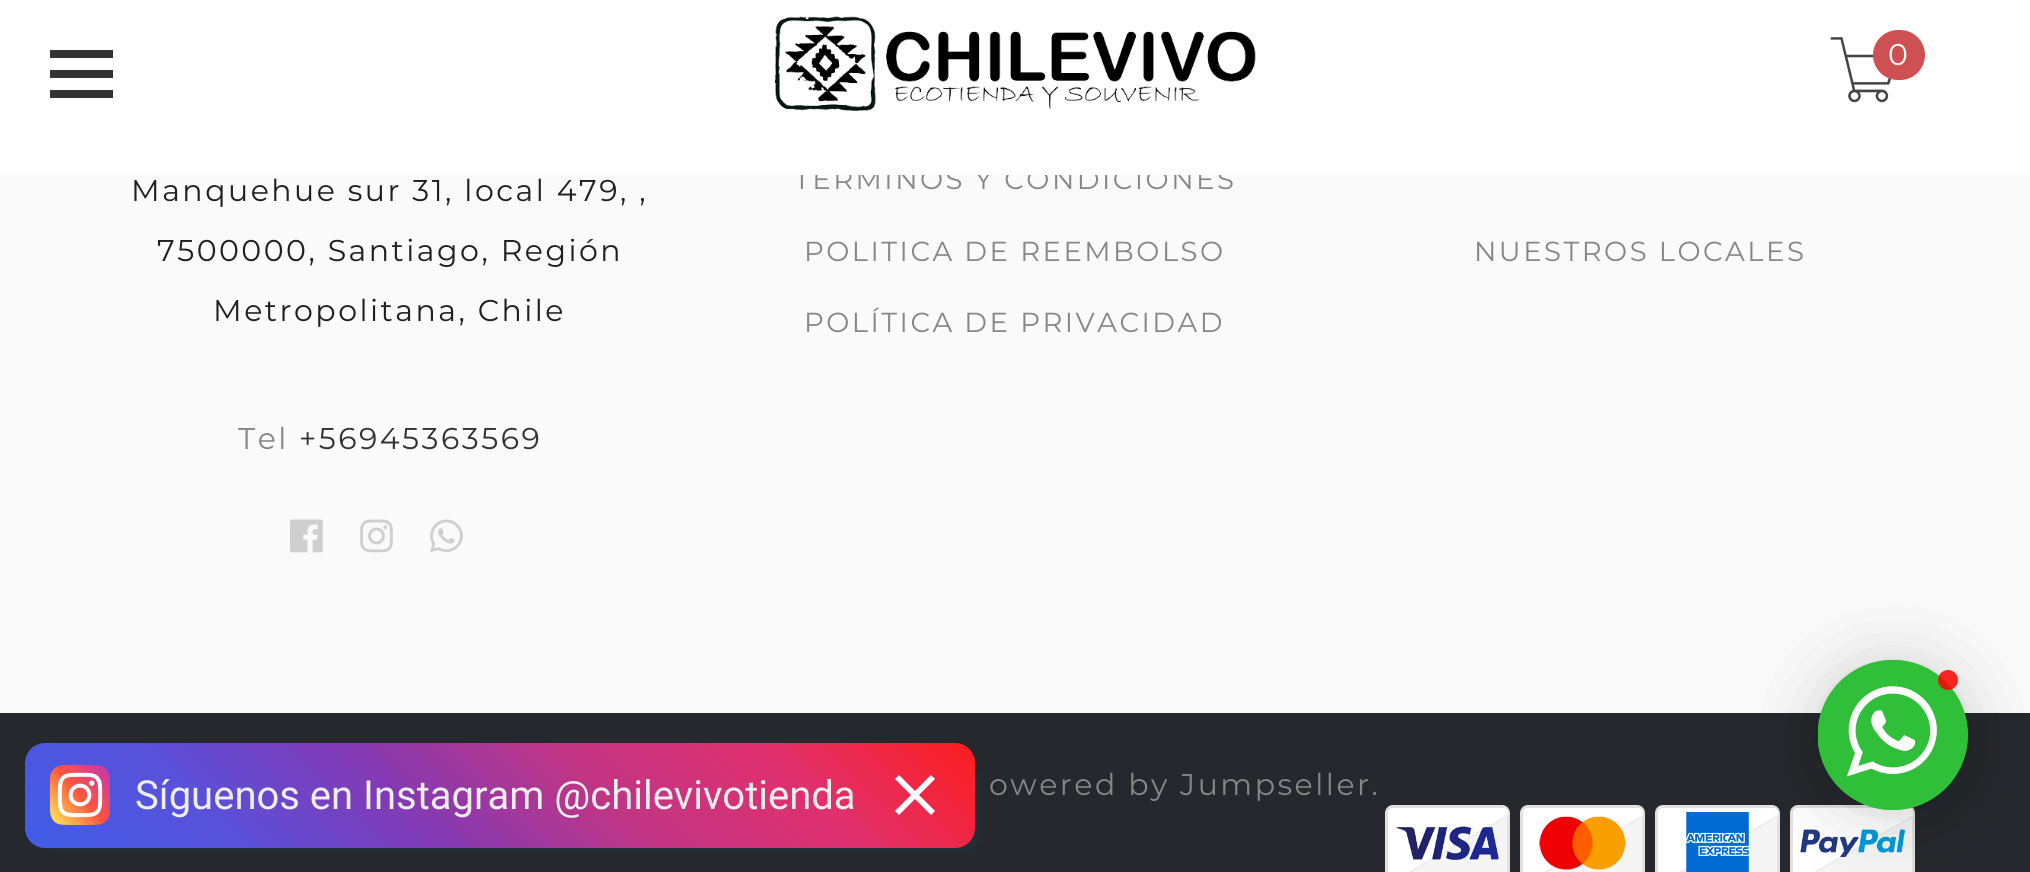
#include <cairo.h>
#include <math.h>
#include <stddef.h>

static cairo_t *ctx;

static void use_color(int r, int g, int b) {
    cairo_set_source_rgb(ctx, r / 255.0, g / 255.0, b / 255.0);
}

static void spaced_text(double x, double y, const char *s, double letter, double word) {
    cairo_move_to(ctx, x, y);
    while (*s) {
        char ch[5] = {0};
        int n = 0;
        do ch[n++] = *s++; while ((*s & 0xC0) == 0x80);
        cairo_show_text(ctx, ch);
        cairo_rel_move_to(ctx, letter + word * (*ch == ' '), 0);
    }
}

static void round_rect(double x, double y, double w, double h, double r) {
    cairo_new_sub_path(ctx);
    cairo_arc(ctx, x + w - r, y + h - r, r, 0, M_PI / 2);
    cairo_arc(ctx, x + r, y + h - r, r, M_PI / 2, M_PI);
    cairo_arc(ctx, x + r, y + r, r, M_PI, 1.5 * M_PI);
    cairo_arc(ctx, x + w - r, y + r, r, 1.5 * M_PI, 2 * M_PI);
    cairo_close_path(ctx);
}

static void shadow(double x, double y, double w, double h, double r, double blur, double alpha) {
    cairo_push_group_with_content(ctx, CAIRO_CONTENT_ALPHA);
    cairo_set_operator(ctx, CAIRO_OPERATOR_SOURCE);
    for (int i = 15; i >= -15 && fmin(w, h) + blur * i / 3 > 0; i -= 2) {
        double e = blur * i / 6;
        cairo_set_source_rgba(ctx, 0, 0, 0, alpha * erfc((i - 1) / 8.5) / 2);
        round_rect(x - e, y - e, w + 2 * e, h + 2 * e, fmax(0, fmin(r + e + blur * .6, fmin(w, h) / 2 + e)));
        cairo_fill(ctx);
    }
    cairo_pattern_t *soft = cairo_pop_group(ctx);
    cairo_mask(ctx, soft);
    cairo_pattern_destroy(soft);
}

static void picture(const char *path, double x, double y, double w, double h) {
    cairo_surface_t *image = cairo_image_surface_create_from_png(path);
    cairo_save(ctx);
    cairo_set_source_surface(ctx, image, x, y);
    cairo_rectangle(ctx, x, y, w, h);
    cairo_fill(ctx);
    cairo_restore(ctx);
    cairo_surface_destroy(image);
}

int main(void) {
    cairo_surface_t *surface = cairo_image_surface_create(CAIRO_FORMAT_RGB24, 2030, 872);
    ctx = cairo_create(surface);
    cairo_font_options_t *options = cairo_font_options_create();
    cairo_font_options_set_hint_metrics(options, CAIRO_HINT_METRICS_OFF);
    cairo_font_options_set_hint_style(options, CAIRO_HINT_STYLE_NONE);
    cairo_set_font_options(ctx, options);
    cairo_set_miter_limit(ctx, 4);
    cairo_pattern_t *gradient;
    use_color(250, 250, 250);
    cairo_paint(ctx);
    cairo_select_font_face(ctx, "Montserrat", CAIRO_FONT_SLANT_NORMAL, CAIRO_FONT_WEIGHT_NORMAL);
    cairo_set_font_size(ctx, 27.5);
    use_color(134, 134, 134);
    spaced_text(794, 189, "TÉRMINOS Y CONDICIONES", 2.5, 0);
    use_color(255, 255, 255);
    cairo_rectangle(ctx, 0, 0, 2030, 175);
    cairo_fill(ctx);
    use_color(51, 51, 51);
    cairo_rectangle(ctx, 50, 50, 63, 8);
    cairo_fill(ctx);
    cairo_rectangle(ctx, 50, 70, 63, 8);
    cairo_fill(ctx);
    cairo_rectangle(ctx, 50, 90, 63, 8);
    cairo_fill(ctx);
    picture("img1.png", 774, 16, 482, 95);
    picture("img2.png", 1830, 37, 61, 66);
    use_color(207, 80, 83);
    round_rect(1873, 30, 52, 50, 25);
    cairo_fill(ctx);
    cairo_set_font_size(ctx, 30);
    use_color(255, 255, 255);
    spaced_text(1888, 65, "0", 2.5, 0);
    use_color(32, 32, 32);
    spaced_text(131, 201, "Manquehue sur 31, local 479, ,", 2.5, 0);
    spaced_text(157, 261, "7500000, Santiago, Región", 2.5, 0);
    spaced_text(213, 321, "Metropolitana, Chile", 2.5, 0);
    use_color(134, 134, 134);
    spaced_text(238, 449, "Tel", 2.5, 0);
    use_color(51, 51, 51);
    spaced_text(299, 449, "+56945363569", 2.5, 0);
    picture("img3.png", 290, 519, 33, 34);
    picture("img4.png", 360, 519, 33, 34);
    picture("img5.png", 430, 519, 33, 34);
    cairo_set_font_size(ctx, 27.5);
    use_color(134, 134, 134);
    spaced_text(804, 261, "POLITICA DE REEMBOLSO", 2.5, 0);
    spaced_text(804, 332, "POLÍTICA DE PRIVACIDAD", 2.5, 0);
    spaced_text(1474, 261, "NUESTROS LOCALES", 2.5, 0);
    use_color(37, 40, 44);
    cairo_rectangle(ctx, 0, 713, 2030, 159);
    cairo_fill(ctx);
    use_color(34, 60, 80);
    shadow(50, 768, 925, 80, 8, 6, 0.6);
    gradient = cairo_pattern_create_linear(236, 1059, 764, 531);
    cairo_pattern_add_color_stop_rgba(gradient, 0, 0.251, 0.365, 0.902, 1);
    cairo_pattern_add_color_stop_rgba(gradient, 0.2, 0.345, 0.318, 0.859, 1);
    cairo_pattern_add_color_stop_rgba(gradient, 0.4, 0.514, 0.227, 0.706, 1);
    cairo_pattern_add_color_stop_rgba(gradient, 0.6, 0.757, 0.208, 0.518, 1);
    cairo_pattern_add_color_stop_rgba(gradient, 0.8, 0.882, 0.188, 0.424, 1);
    cairo_pattern_add_color_stop_rgba(gradient, 1, 0.992, 0.114, 0.114, 1);
    cairo_set_source(ctx, gradient);
    cairo_pattern_destroy(gradient);
    round_rect(25, 743, 950, 105, 20);
    cairo_fill(ctx);
    picture("img6.png", 50, 765, 60, 60);
    cairo_select_font_face(ctx, "Roboto", CAIRO_FONT_SLANT_NORMAL, CAIRO_FONT_WEIGHT_NORMAL);
    cairo_set_font_size(ctx, 40);
    use_color(238, 238, 238);
    cairo_move_to(ctx, 135, 809);
    cairo_show_text(ctx, "Síguenos en Instagram @chilevivotienda");
    use_color(255, 255, 255);
    cairo_new_path(ctx);
    cairo_move_to(ctx, 935, 779);
    cairo_line_to(ctx, 931, 775);
    cairo_line_to(ctx, 915, 791);
    cairo_line_to(ctx, 899, 775);
    cairo_line_to(ctx, 895, 779);
    cairo_line_to(ctx, 911, 795);
    cairo_line_to(ctx, 895, 811);
    cairo_line_to(ctx, 899, 815);
    cairo_line_to(ctx, 915, 799);
    cairo_line_to(ctx, 931, 815);
    cairo_line_to(ctx, 935, 811);
    cairo_line_to(ctx, 919, 795);
    cairo_close_path(ctx);
    cairo_fill(ctx);
    cairo_select_font_face(ctx, "Montserrat", CAIRO_FONT_SLANT_NORMAL, CAIRO_FONT_WEIGHT_NORMAL);
    cairo_set_font_size(ctx, 30);
    use_color(134, 134, 134);
    spaced_text(989, 795, "owered by Jumpseller.", 2.5, 0);
    use_color(245, 245, 245);
    round_rect(1386.5, 806.5, 122, 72, 6.5);
    cairo_fill_preserve(ctx);
    use_color(225, 225, 225);
    cairo_set_line_width(ctx, 3);
    cairo_stroke(ctx);
    use_color(255, 255, 255);
    cairo_new_path(ctx);
    cairo_move_to(ctx, 1393, 808);
    cairo_line_to(ctx, 1503, 808);
    cairo_curve_to(ctx, 1506, 808, 1508, 810, 1508, 813);
    cairo_line_to(ctx, 1508, 817);
    cairo_line_to(ctx, 1403, 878);
    cairo_line_to(ctx, 1393, 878);
    cairo_curve_to(ctx, 1390, 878, 1388, 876, 1388, 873);
    cairo_line_to(ctx, 1388, 813);
    cairo_curve_to(ctx, 1388, 810, 1390, 808, 1393, 808);
    cairo_close_path(ctx);
    cairo_fill(ctx);
    cairo_save(ctx);
    round_rect(1388, 808, 120, 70, 5);
    cairo_clip(ctx);
    cairo_new_path(ctx);
    cairo_move_to(ctx, 1431.5, 574);
    cairo_line_to(ctx, 1555.5, 788.5);
    cairo_line_to(ctx, 1341, 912);
    cairo_line_to(ctx, 1217.5, 698);
    cairo_close_path(ctx);
    use_color(238, 238, 238);
    cairo_set_line_width(ctx, 2.5);
    cairo_stroke(ctx);
    cairo_restore(ctx);
    picture("img7.png", 1396, 826, 103, 34);
    use_color(245, 245, 245);
    round_rect(1521.5, 806.5, 122, 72, 6.5);
    cairo_fill_preserve(ctx);
    use_color(225, 225, 225);
    cairo_stroke(ctx);
    use_color(255, 255, 255);
    cairo_new_path(ctx);
    cairo_move_to(ctx, 1528, 808);
    cairo_line_to(ctx, 1638, 808);
    cairo_curve_to(ctx, 1641, 808, 1643, 810, 1643, 813);
    cairo_line_to(ctx, 1643, 817);
    cairo_line_to(ctx, 1538, 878);
    cairo_line_to(ctx, 1528, 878);
    cairo_curve_to(ctx, 1525, 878, 1523, 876, 1523, 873);
    cairo_line_to(ctx, 1523, 813);
    cairo_curve_to(ctx, 1523, 810, 1525, 808, 1528, 808);
    cairo_close_path(ctx);
    cairo_fill(ctx);
    cairo_save(ctx);
    round_rect(1523, 808, 120, 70, 5);
    cairo_clip(ctx);
    cairo_new_path(ctx);
    cairo_move_to(ctx, 1567, 574);
    cairo_line_to(ctx, 1691, 788.5);
    cairo_line_to(ctx, 1476.5, 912);
    cairo_line_to(ctx, 1352.5, 698);
    cairo_close_path(ctx);
    use_color(238, 238, 238);
    cairo_set_line_width(ctx, 2.5);
    cairo_stroke(ctx);
    cairo_restore(ctx);
    picture("img8.png", 1539, 816, 87, 54);
    use_color(245, 245, 245);
    round_rect(1656.5, 806.5, 122, 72, 6.5);
    cairo_fill_preserve(ctx);
    use_color(225, 225, 225);
    cairo_stroke(ctx);
    use_color(255, 255, 255);
    cairo_new_path(ctx);
    cairo_move_to(ctx, 1663, 808);
    cairo_line_to(ctx, 1773, 808);
    cairo_curve_to(ctx, 1776, 808, 1778, 810, 1778, 813);
    cairo_line_to(ctx, 1778, 818);
    cairo_line_to(ctx, 1673, 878);
    cairo_line_to(ctx, 1663, 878);
    cairo_curve_to(ctx, 1660, 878, 1658, 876, 1658, 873);
    cairo_line_to(ctx, 1658, 813);
    cairo_curve_to(ctx, 1658, 810, 1660, 808, 1663, 808);
    cairo_close_path(ctx);
    cairo_fill(ctx);
    cairo_save(ctx);
    round_rect(1658, 808, 120, 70, 5);
    cairo_clip(ctx);
    cairo_new_path(ctx);
    cairo_move_to(ctx, 1702.5, 574);
    cairo_line_to(ctx, 1826, 788.5);
    cairo_line_to(ctx, 1612, 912);
    cairo_line_to(ctx, 1488, 698);
    cairo_close_path(ctx);
    use_color(238, 238, 238);
    cairo_set_line_width(ctx, 2.5);
    cairo_stroke(ctx);
    cairo_restore(ctx);
    picture("img9.png", 1686, 812, 63, 60);
    use_color(245, 245, 245);
    round_rect(1791.5, 806.5, 122, 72, 6.5);
    cairo_fill_preserve(ctx);
    use_color(225, 225, 225);
    cairo_stroke(ctx);
    use_color(255, 255, 255);
    cairo_new_path(ctx);
    cairo_move_to(ctx, 1798, 808);
    cairo_line_to(ctx, 1908, 808);
    cairo_curve_to(ctx, 1911, 808, 1913, 810, 1913, 813);
    cairo_line_to(ctx, 1913, 818);
    cairo_line_to(ctx, 1809, 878);
    cairo_line_to(ctx, 1798, 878);
    cairo_curve_to(ctx, 1795, 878, 1793, 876, 1793, 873);
    cairo_line_to(ctx, 1793, 813);
    cairo_curve_to(ctx, 1793, 810, 1795, 808, 1798, 808);
    cairo_close_path(ctx);
    cairo_fill(ctx);
    cairo_save(ctx);
    round_rect(1793, 808, 120, 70, 5);
    cairo_clip(ctx);
    cairo_new_path(ctx);
    cairo_move_to(ctx, 1838, 574);
    cairo_line_to(ctx, 1961.5, 788.5);
    cairo_line_to(ctx, 1747, 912);
    cairo_line_to(ctx, 1623.5, 698);
    cairo_close_path(ctx);
    use_color(238, 238, 238);
    cairo_set_line_width(ctx, 2.5);
    cairo_stroke(ctx);
    cairo_restore(ctx);
    picture("img10.png", 1800, 829, 105, 28);
    use_color(0, 0, 0);
    shadow(1818, 665, 150, 150, 75, 40, 0.16);
    shadow(1818, 663, 150, 150, 75, 7.5, 0.06);
    use_color(48, 191, 57);
    cairo_arc(ctx, 1893, 735, 75, 0, 2 * M_PI);
    cairo_fill(ctx);
    picture("img11.png", 1818, 660, 150, 150);
    cairo_set_source_rgba(ctx, 1, 0, 0, 0.85);
    cairo_arc(ctx, 1948, 680, 10, 0, 2 * M_PI);
    cairo_fill(ctx);
    cairo_surface_write_to_png(surface, "result.png");
    cairo_font_options_destroy(options);
    cairo_destroy(ctx);
    cairo_surface_destroy(surface);
    return 0;
}
